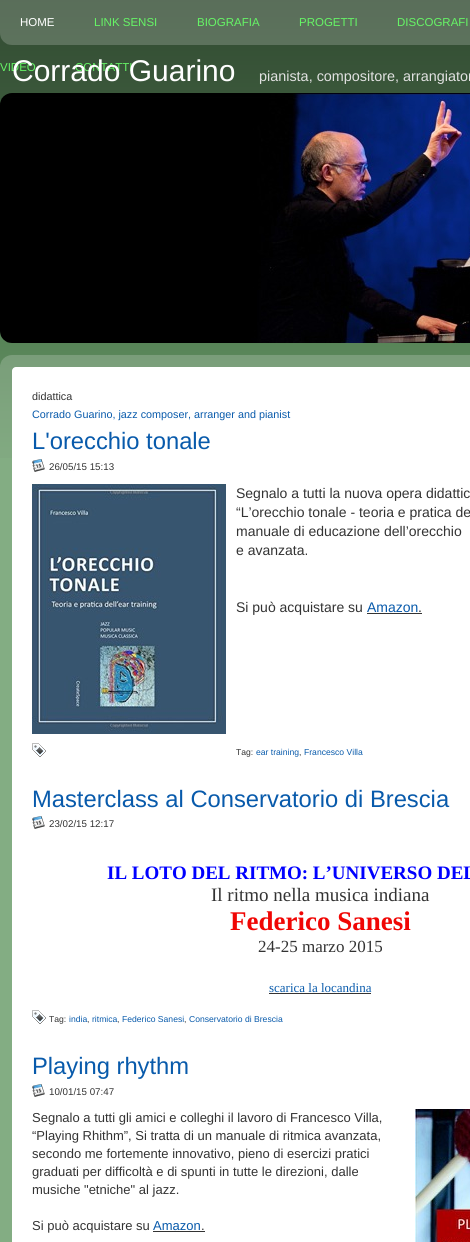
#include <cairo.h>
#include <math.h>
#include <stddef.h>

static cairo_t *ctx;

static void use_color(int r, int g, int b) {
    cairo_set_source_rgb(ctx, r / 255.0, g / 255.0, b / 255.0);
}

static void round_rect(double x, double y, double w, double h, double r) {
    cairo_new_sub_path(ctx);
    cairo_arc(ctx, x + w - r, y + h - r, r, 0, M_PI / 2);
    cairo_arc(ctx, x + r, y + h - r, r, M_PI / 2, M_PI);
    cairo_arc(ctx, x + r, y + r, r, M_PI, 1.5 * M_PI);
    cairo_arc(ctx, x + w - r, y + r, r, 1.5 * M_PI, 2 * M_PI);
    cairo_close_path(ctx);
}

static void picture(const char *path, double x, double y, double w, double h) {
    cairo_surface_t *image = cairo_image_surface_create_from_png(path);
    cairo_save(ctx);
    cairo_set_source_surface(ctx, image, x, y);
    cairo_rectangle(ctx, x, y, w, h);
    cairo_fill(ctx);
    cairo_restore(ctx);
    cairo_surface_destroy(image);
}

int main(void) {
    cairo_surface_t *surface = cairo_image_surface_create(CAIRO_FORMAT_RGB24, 470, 1242);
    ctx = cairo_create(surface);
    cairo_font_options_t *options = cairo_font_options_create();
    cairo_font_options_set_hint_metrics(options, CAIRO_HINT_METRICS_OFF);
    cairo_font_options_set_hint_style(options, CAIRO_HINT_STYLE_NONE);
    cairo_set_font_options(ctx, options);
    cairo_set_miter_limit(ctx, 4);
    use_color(102, 153, 102);
    cairo_paint(ctx);
    picture("img1.png", 0, 0, 470, 458);
    picture("img2.png", 0, 0, 470, 45);
    cairo_select_font_face(ctx, "Liberation Sans", CAIRO_FONT_SLANT_NORMAL, CAIRO_FONT_WEIGHT_NORMAL);
    cairo_set_font_size(ctx, 11.5);
    use_color(255, 255, 255);
    cairo_move_to(ctx, 20, 26);
    cairo_show_text(ctx, "HOME");
    use_color(102, 244, 102);
    cairo_move_to(ctx, 94, 26);
    cairo_show_text(ctx, "LINK SENSI");
    cairo_move_to(ctx, 197, 26);
    cairo_show_text(ctx, "BIOGRAFIA");
    cairo_move_to(ctx, 299, 26);
    cairo_show_text(ctx, "PROGETTI");
    cairo_move_to(ctx, 397, 26);
    cairo_show_text(ctx, "DISCOGRAFI");
    cairo_move_to(ctx, 0, 71);
    cairo_show_text(ctx, "VIDEO");
    cairo_move_to(ctx, 75, 71);
    cairo_show_text(ctx, "CONTATTI");
    cairo_set_font_size(ctx, 30);
    use_color(255, 255, 255);
    cairo_move_to(ctx, 12, 81);
    cairo_show_text(ctx, "Corrado Guarino");
    cairo_set_font_size(ctx, 14.4);
    use_color(225, 225, 225);
    cairo_move_to(ctx, 259, 81);
    cairo_show_text(ctx, "pianista, compositore, arrangiator");
    picture("img3.png", 0, 93, 470, 250);
    picture("img4.png", 0, 355, 470, 887);
    use_color(255, 255, 255);
    round_rect(12, 367, 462, 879, 4);
    cairo_fill(ctx);
    cairo_set_font_size(ctx, 10.8);
    use_color(51, 51, 51);
    cairo_move_to(ctx, 32, 400);
    cairo_show_text(ctx, "didattica");
    use_color(8, 90, 171);
    cairo_move_to(ctx, 32, 418);
    cairo_show_text(ctx, "Corrado Guarino, jazz composer, arranger and pianist");
    cairo_set_font_size(ctx, 23.75);
    cairo_move_to(ctx, 32, 449);
    cairo_show_text(ctx, "L'orecchio tonale");
    picture("img5.png", 32, 459, 13, 13);
    cairo_set_font_size(ctx, 9.75);
    use_color(51, 51, 51);
    cairo_move_to(ctx, 49, 470);
    cairo_show_text(ctx, "26/05/15 15:13");
    picture("img6.png", 32, 484, 194, 250);
    cairo_set_font_size(ctx, 14);
    cairo_move_to(ctx, 236, 498);
    cairo_show_text(ctx, "Segnalo a tutti la nuova opera didattic");
    cairo_move_to(ctx, 236, 517);
    cairo_show_text(ctx, "“L’orecchio tonale - teoria e pratica de");
    cairo_move_to(ctx, 236, 536);
    cairo_show_text(ctx, "manuale di educazione dell’orecchio");
    cairo_move_to(ctx, 236, 555);
    cairo_show_text(ctx, "e avanzata.");
    cairo_move_to(ctx, 236, 612);
    cairo_show_text(ctx, "Si può acquistare su");
    use_color(8, 90, 171);
    cairo_move_to(ctx, 367, 612);
    cairo_show_text(ctx, "Amazon");
    use_color(51, 51, 51);
    cairo_rectangle(ctx, 367, 613, 55, 1);
    cairo_fill(ctx);
    cairo_move_to(ctx, 418, 612);
    cairo_show_text(ctx, ".");
    picture("img7.png", 32, 743, 14, 14);
    cairo_set_font_size(ctx, 8.6);
    cairo_move_to(ctx, 236, 755);
    cairo_show_text(ctx, "Tag:");
    use_color(8, 90, 171);
    cairo_move_to(ctx, 256, 755);
    cairo_show_text(ctx, "ear training");
    use_color(51, 51, 51);
    cairo_move_to(ctx, 299, 755);
    cairo_show_text(ctx, ",");
    use_color(8, 90, 171);
    cairo_move_to(ctx, 304, 755);
    cairo_show_text(ctx, "Francesco Villa");
    cairo_set_font_size(ctx, 23.75);
    cairo_move_to(ctx, 32, 807);
    cairo_show_text(ctx, "Masterclass al Conservatorio di Brescia");
    picture("img5.png", 32, 816, 13, 13);
    cairo_set_font_size(ctx, 9.75);
    use_color(51, 51, 51);
    cairo_move_to(ctx, 49, 827);
    cairo_show_text(ctx, "23/02/15 12:17");
    cairo_select_font_face(ctx, "Liberation Serif", CAIRO_FONT_SLANT_NORMAL, CAIRO_FONT_WEIGHT_BOLD);
    cairo_set_font_size(ctx, 19);
    use_color(0, 0, 255);
    cairo_move_to(ctx, 107, 879);
    cairo_show_text(ctx, "IL LOTO DEL RITMO: L’UNIVERSO DEL");
    cairo_select_font_face(ctx, "Liberation Serif", CAIRO_FONT_SLANT_NORMAL, CAIRO_FONT_WEIGHT_NORMAL);
    use_color(51, 51, 51);
    cairo_move_to(ctx, 211, 901);
    cairo_show_text(ctx, "Il ritmo nella musica indiana");
    cairo_select_font_face(ctx, "Liberation Serif", CAIRO_FONT_SLANT_NORMAL, CAIRO_FONT_WEIGHT_BOLD);
    cairo_set_font_size(ctx, 27);
    use_color(240, 6, 4);
    cairo_move_to(ctx, 230, 930);
    cairo_show_text(ctx, "Federico Sanesi");
    cairo_select_font_face(ctx, "Liberation Serif", CAIRO_FONT_SLANT_NORMAL, CAIRO_FONT_WEIGHT_NORMAL);
    cairo_set_font_size(ctx, 17);
    use_color(51, 51, 51);
    cairo_move_to(ctx, 258, 952);
    cairo_show_text(ctx, "24-25 marzo 2015");
    cairo_set_font_size(ctx, 13);
    use_color(8, 90, 171);
    cairo_move_to(ctx, 269, 992);
    cairo_show_text(ctx, "scarica la locandina");
    use_color(51, 51, 51);
    cairo_rectangle(ctx, 269, 993, 102, 1);
    cairo_fill(ctx);
    picture("img7.png", 32, 1010, 14, 14);
    cairo_select_font_face(ctx, "Liberation Sans", CAIRO_FONT_SLANT_NORMAL, CAIRO_FONT_WEIGHT_NORMAL);
    cairo_set_font_size(ctx, 8.6);
    cairo_move_to(ctx, 49, 1022);
    cairo_show_text(ctx, "Tag:");
    use_color(8, 90, 171);
    cairo_move_to(ctx, 69, 1022);
    cairo_show_text(ctx, "india");
    use_color(51, 51, 51);
    cairo_move_to(ctx, 87, 1022);
    cairo_show_text(ctx, ",");
    use_color(8, 90, 171);
    cairo_move_to(ctx, 92, 1022);
    cairo_show_text(ctx, "ritmica");
    cairo_move_to(ctx, 122, 1022);
    cairo_show_text(ctx, "Federico Sanesi");
    cairo_move_to(ctx, 189, 1022);
    cairo_show_text(ctx, "Conservatorio di Brescia");
    use_color(51, 51, 51);
    cairo_move_to(ctx, 117, 1022);
    cairo_show_text(ctx, ",");
    cairo_move_to(ctx, 184, 1022);
    cairo_show_text(ctx, ",");
    cairo_set_font_size(ctx, 23.75);
    use_color(8, 90, 171);
    cairo_move_to(ctx, 32, 1074);
    cairo_show_text(ctx, "Playing rhythm");
    picture("img5.png", 32, 1084, 13, 13);
    cairo_set_font_size(ctx, 9.75);
    use_color(51, 51, 51);
    cairo_move_to(ctx, 49, 1095);
    cairo_show_text(ctx, "10/01/15 07:47");
    cairo_set_font_size(ctx, 13);
    cairo_move_to(ctx, 32, 1122);
    cairo_show_text(ctx, "Segnalo a tutti gli amici e colleghi il lavoro di Francesco Villa,");
    picture("img8.png", 415, 1109, 55, 133);
    cairo_move_to(ctx, 32, 1140);
    cairo_show_text(ctx, "“Playing Rhithm”, Si tratta di un manuale di ritmica avanzata,");
    cairo_move_to(ctx, 32, 1158);
    cairo_show_text(ctx, "secondo me fortemente innovativo, pieno di esercizi pratici");
    cairo_move_to(ctx, 32, 1176);
    cairo_show_text(ctx, "graduati per difficoltà e di spunti in tutte le direzioni, dalle");
    cairo_move_to(ctx, 32, 1194);
    cairo_show_text(ctx, "musiche \"etniche\" al jazz.");
    cairo_move_to(ctx, 32, 1230);
    cairo_show_text(ctx, "Si può acquistare su");
    use_color(8, 90, 171);
    cairo_move_to(ctx, 153, 1230);
    cairo_show_text(ctx, "Amazon");
    use_color(51, 51, 51);
    cairo_rectangle(ctx, 153, 1231, 52, 1);
    cairo_fill(ctx);
    cairo_move_to(ctx, 201, 1230);
    cairo_show_text(ctx, ".");
    cairo_surface_write_to_png(surface, "result.png");
    cairo_font_options_destroy(options);
    cairo_destroy(ctx);
    cairo_surface_destroy(surface);
    return 0;
}
